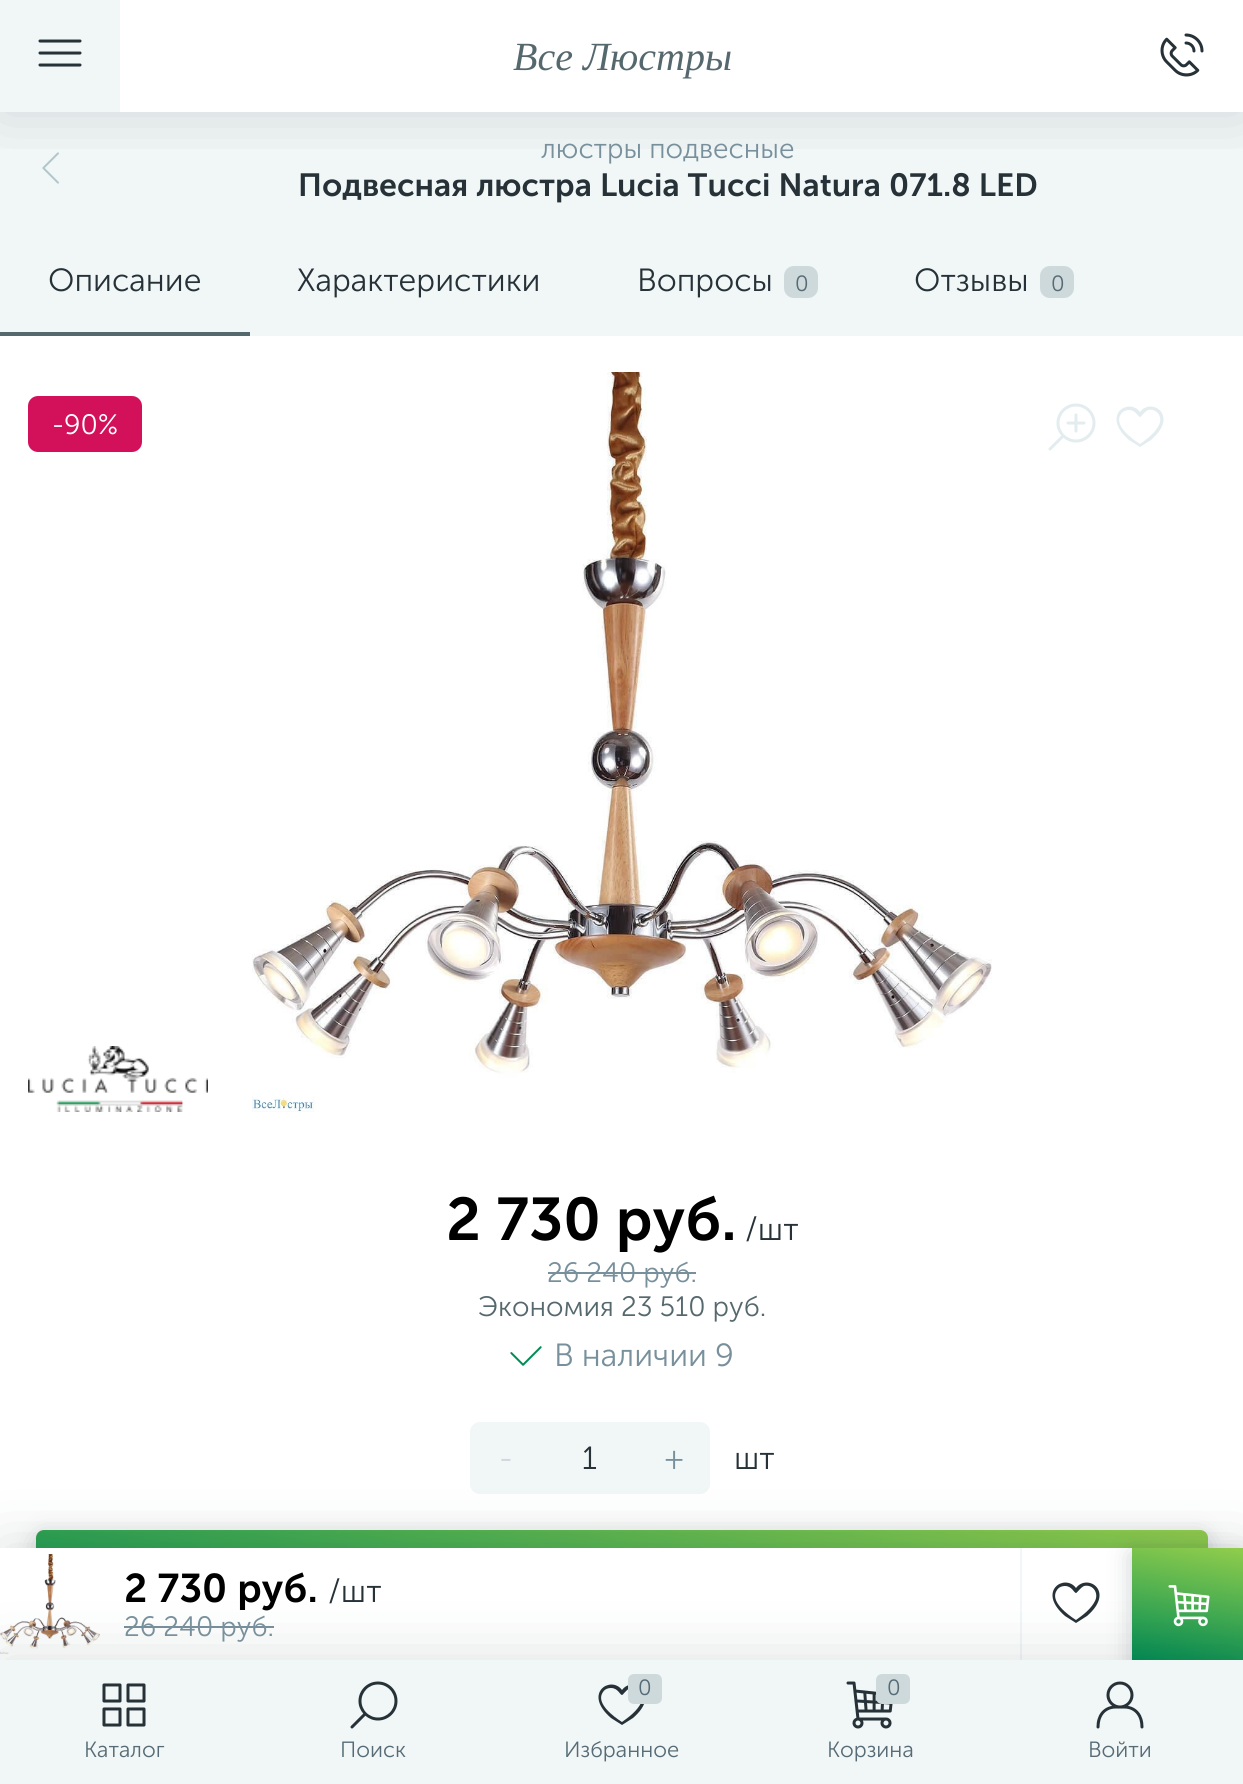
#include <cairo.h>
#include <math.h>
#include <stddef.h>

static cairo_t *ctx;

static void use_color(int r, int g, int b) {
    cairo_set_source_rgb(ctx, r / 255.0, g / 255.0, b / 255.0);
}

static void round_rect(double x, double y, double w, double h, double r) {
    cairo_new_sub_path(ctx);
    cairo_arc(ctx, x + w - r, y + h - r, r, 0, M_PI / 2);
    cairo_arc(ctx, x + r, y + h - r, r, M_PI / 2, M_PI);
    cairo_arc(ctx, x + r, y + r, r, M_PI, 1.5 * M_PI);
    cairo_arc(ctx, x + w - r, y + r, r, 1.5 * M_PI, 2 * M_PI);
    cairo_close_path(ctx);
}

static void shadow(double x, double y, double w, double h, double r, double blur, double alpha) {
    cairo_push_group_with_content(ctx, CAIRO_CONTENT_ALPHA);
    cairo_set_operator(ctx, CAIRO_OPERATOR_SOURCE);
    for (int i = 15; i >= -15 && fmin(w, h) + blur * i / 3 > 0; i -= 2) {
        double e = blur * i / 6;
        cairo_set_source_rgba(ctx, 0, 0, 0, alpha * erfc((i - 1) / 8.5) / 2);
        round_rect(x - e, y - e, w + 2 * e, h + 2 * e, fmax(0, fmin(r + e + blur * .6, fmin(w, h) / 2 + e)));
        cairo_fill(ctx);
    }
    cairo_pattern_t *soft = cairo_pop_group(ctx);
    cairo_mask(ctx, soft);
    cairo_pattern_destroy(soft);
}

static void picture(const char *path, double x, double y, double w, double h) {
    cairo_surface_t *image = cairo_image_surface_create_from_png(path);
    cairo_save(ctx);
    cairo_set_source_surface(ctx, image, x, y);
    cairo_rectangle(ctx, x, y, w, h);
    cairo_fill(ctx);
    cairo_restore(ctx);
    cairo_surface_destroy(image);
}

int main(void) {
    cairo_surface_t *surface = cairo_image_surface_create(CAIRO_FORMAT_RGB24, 1243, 1784);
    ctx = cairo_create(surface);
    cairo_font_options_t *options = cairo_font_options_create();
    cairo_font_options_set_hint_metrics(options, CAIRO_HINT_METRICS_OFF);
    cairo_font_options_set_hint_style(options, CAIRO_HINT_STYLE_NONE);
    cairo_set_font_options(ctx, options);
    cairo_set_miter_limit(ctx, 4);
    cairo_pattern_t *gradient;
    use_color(255, 255, 255);
    cairo_paint(ctx);
    use_color(241, 246, 247);
    cairo_rectangle(ctx, 0, 112, 1243, 224);
    cairo_fill(ctx);
    picture("img7.png", 42, 152, 17, 32);
    cairo_save(ctx);
    cairo_rectangle(ctx, 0, 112, 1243, 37);
    cairo_clip(ctx);
    use_color(38, 50, 56);
    shadow(0, 0, 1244, 112, 0, 32, 0.16);
    cairo_restore(ctx);
    cairo_rectangle(ctx, 0, 0, 120, 112);
    cairo_fill(ctx);
    picture("img1.png", 38, 39, 44, 28);
    cairo_select_font_face(ctx, "Liberation Serif", CAIRO_FONT_SLANT_ITALIC, CAIRO_FONT_WEIGHT_NORMAL);
    cairo_set_font_size(ctx, 40);
    use_color(85, 104, 110);
    cairo_move_to(ctx, 513, 70);
    cairo_show_text(ctx, "Все Люстры");
    picture("img2.png", 1160, 33, 44, 44);
    use_color(38, 50, 56);
    shadow(36, 1536, 1172, 96, 8, 12, 0.24);
    gradient = cairo_pattern_create_linear(596, 1725, 648, 1431);
    cairo_pattern_add_color_stop_rgba(gradient, 0, 0, 0.553, 0.333, 1);
    cairo_pattern_add_color_stop_rgba(gradient, 1, 0.569, 0.804, 0.298, 1);
    cairo_set_source(ctx, gradient);
    cairo_pattern_destroy(gradient);
    round_rect(36, 1530, 1172, 96, 8);
    cairo_fill(ctx);
    use_color(241, 246, 247);
    cairo_new_path(ctx);
    cairo_move_to(ctx, 480, 1422);
    cairo_line_to(ctx, 542, 1422);
    cairo_line_to(ctx, 542, 1494);
    cairo_line_to(ctx, 480, 1494);
    cairo_curve_to(ctx, 474.5, 1494, 470, 1489.5, 470, 1484);
    cairo_line_to(ctx, 470, 1432);
    cairo_curve_to(ctx, 470, 1426.5, 474.5, 1422, 480, 1422);
    cairo_close_path(ctx);
    cairo_fill(ctx);
    cairo_rectangle(ctx, 542, 1422, 96, 72);
    cairo_fill(ctx);
    cairo_new_path(ctx);
    cairo_move_to(ctx, 638, 1422);
    cairo_line_to(ctx, 700, 1422);
    cairo_curve_to(ctx, 705.5, 1422, 710, 1426.5, 710, 1432);
    cairo_line_to(ctx, 710, 1484);
    cairo_curve_to(ctx, 710, 1489.5, 705.5, 1494, 700, 1494);
    cairo_line_to(ctx, 638, 1494);
    cairo_close_path(ctx);
    cairo_fill(ctx);
    use_color(38, 50, 56);
    shadow(0, 1548, 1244, 112, 0, 32, 0.16);
    use_color(255, 255, 255);
    cairo_rectangle(ctx, 0, 1548, 1132, 112);
    cairo_fill(ctx);
    picture("img12.png", 0, 1554, 100, 100);
    use_color(120, 144, 156);
    cairo_rectangle(ctx, 124, 1626, 150, 2);
    cairo_fill(ctx);
    use_color(241, 246, 247);
    cairo_rectangle(ctx, 1020, 1548, 2, 112);
    cairo_fill(ctx);
    use_color(38, 50, 56);
    cairo_new_path(ctx);
    cairo_move_to(ctx, 1076, 1623);
    cairo_line_to(ctx, 1065, 1616);
    cairo_curve_to(ctx, 1036, 1591, 1065, 1573, 1076, 1588);
    cairo_curve_to(ctx, 1087, 1573, 1116, 1591, 1087, 1616);
    cairo_close_path(ctx);
    cairo_move_to(ctx, 1065, 1586);
    cairo_curve_to(ctx, 1062, 1586, 1059, 1587, 1057, 1590);
    cairo_curve_to(ctx, 1049, 1601, 1068, 1615, 1076, 1620);
    cairo_curve_to(ctx, 1083, 1615, 1091, 1609, 1095, 1601);
    cairo_curve_to(ctx, 1099, 1593, 1093, 1584, 1084, 1586);
    cairo_curve_to(ctx, 1080, 1588, 1077, 1593, 1076, 1593);
    cairo_curve_to(ctx, 1074, 1593, 1072, 1586, 1065, 1586);
    cairo_close_path(ctx);
    cairo_fill(ctx);
    use_color(38, 50, 56);
    shadow(1132, 1554, 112, 112, 0, 12, 0.24);
    gradient = cairo_pattern_create_linear(1177, 1668, 1199, 1540);
    cairo_pattern_add_color_stop_rgba(gradient, 0, 0, 0.553, 0.333, 1);
    cairo_pattern_add_color_stop_rgba(gradient, 1, 0.569, 0.804, 0.298, 1);
    cairo_set_source(ctx, gradient);
    cairo_pattern_destroy(gradient);
    cairo_rectangle(ctx, 1132, 1548, 111, 112);
    cairo_fill(ctx);
    picture("img13.png", 1168, 1585, 42, 42);
    use_color(38, 50, 56);
    shadow(0, 1660, 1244, 124, 0, 32, 0.16);
    use_color(241, 246, 247);
    cairo_rectangle(ctx, 0, 1660, 1243, 124);
    cairo_fill(ctx);
    picture("img3.png", 102, 1683, 44, 44);
    cairo_select_font_face(ctx, "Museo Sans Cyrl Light", CAIRO_FONT_SLANT_NORMAL, CAIRO_FONT_WEIGHT_NORMAL);
    cairo_set_font_size(ctx, 22);
    use_color(86, 107, 117);
    cairo_move_to(ctx, 84, 1757);
    cairo_show_text(ctx, "Каталог");
    picture("img4.png", 350, 1681, 48, 48);
    cairo_move_to(ctx, 340, 1757);
    cairo_show_text(ctx, "Поиск");
    use_color(38, 50, 56);
    cairo_new_path(ctx);
    cairo_move_to(ctx, 622, 1725);
    cairo_line_to(ctx, 611, 1718);
    cairo_curve_to(ctx, 582, 1693, 611, 1675, 622, 1690);
    cairo_curve_to(ctx, 633, 1675, 662, 1693, 633, 1718);
    cairo_close_path(ctx);
    cairo_move_to(ctx, 611, 1688);
    cairo_curve_to(ctx, 608, 1688, 605, 1689, 603, 1692);
    cairo_curve_to(ctx, 595, 1703, 614, 1717, 622, 1722);
    cairo_curve_to(ctx, 629, 1717, 637, 1711, 641, 1703);
    cairo_curve_to(ctx, 645, 1695, 639, 1686, 630, 1688);
    cairo_curve_to(ctx, 626, 1690, 623, 1695, 622, 1695);
    cairo_curve_to(ctx, 620, 1695, 618, 1688, 611, 1688);
    cairo_close_path(ctx);
    cairo_fill(ctx);
    use_color(206, 217, 219);
    round_rect(628, 1674, 34, 30, 6);
    cairo_fill(ctx);
    use_color(86, 107, 117);
    cairo_move_to(ctx, 638, 1695);
    cairo_show_text(ctx, "0");
    cairo_move_to(ctx, 564, 1757);
    cairo_show_text(ctx, "Избранное");
    picture("img5.png", 846, 1681, 47, 48);
    use_color(206, 217, 219);
    round_rect(876, 1674, 34, 30, 6);
    cairo_fill(ctx);
    use_color(86, 107, 117);
    cairo_move_to(ctx, 887, 1695);
    cairo_show_text(ctx, "0");
    cairo_move_to(ctx, 827, 1757);
    cairo_show_text(ctx, "Корзина");
    picture("img6.png", 1096, 1681, 48, 48);
    cairo_move_to(ctx, 1088, 1757);
    cairo_show_text(ctx, "Войти");
    cairo_set_font_size(ctx, 28);
    use_color(120, 144, 156);
    cairo_move_to(ctx, 541, 158);
    cairo_show_text(ctx, "люстры подвесные");
    cairo_select_font_face(ctx, "Museo Sans Cyrl SemiBold", CAIRO_FONT_SLANT_NORMAL, CAIRO_FONT_WEIGHT_NORMAL);
    cairo_set_font_size(ctx, 32);
    use_color(38, 50, 56);
    cairo_move_to(ctx, 298, 196);
    cairo_show_text(ctx, "Подвесная люстра Lucia Tucci Natura 071.8 LED");
    cairo_select_font_face(ctx, "Museo Sans Cyrl Light", CAIRO_FONT_SLANT_NORMAL, CAIRO_FONT_WEIGHT_NORMAL);
    cairo_move_to(ctx, 48, 291);
    cairo_show_text(ctx, "Описание");
    use_color(85, 104, 110);
    cairo_rectangle(ctx, 0, 332, 250, 4);
    cairo_fill(ctx);
    use_color(38, 50, 56);
    cairo_move_to(ctx, 297, 291);
    cairo_show_text(ctx, "Характеристики");
    cairo_move_to(ctx, 637, 291);
    cairo_show_text(ctx, "Вопросы");
    use_color(206, 217, 219);
    round_rect(784, 266, 34, 32, 10);
    cairo_fill(ctx);
    cairo_set_font_size(ctx, 22);
    use_color(86, 107, 117);
    cairo_move_to(ctx, 795, 291);
    cairo_show_text(ctx, "0");
    cairo_set_font_size(ctx, 32);
    use_color(38, 50, 56);
    cairo_move_to(ctx, 914, 291);
    cairo_show_text(ctx, "Отзывы");
    use_color(206, 217, 219);
    round_rect(1040, 266, 34, 32, 10);
    cairo_fill(ctx);
    cairo_set_font_size(ctx, 22);
    use_color(86, 107, 117);
    cairo_move_to(ctx, 1051, 291);
    cairo_show_text(ctx, "0");
    use_color(211, 17, 90);
    round_rect(28, 396, 114, 56, 10);
    cairo_fill(ctx);
    cairo_set_font_size(ctx, 28);
    use_color(255, 255, 255);
    cairo_move_to(ctx, 52, 434);
    cairo_show_text(ctx, "-90%");
    picture("img8.png", 252, 372, 740, 740);
    picture("img9.png", 1048, 403, 48, 48);
    use_color(227, 236, 239);
    cairo_new_path(ctx);
    cairo_move_to(ctx, 1140, 447);
    cairo_line_to(ctx, 1129, 440);
    cairo_curve_to(ctx, 1100, 415, 1129, 397, 1140, 412);
    cairo_curve_to(ctx, 1151, 397, 1180, 415, 1151, 440);
    cairo_close_path(ctx);
    cairo_move_to(ctx, 1129, 410);
    cairo_curve_to(ctx, 1126, 410, 1123, 411, 1121, 414);
    cairo_curve_to(ctx, 1113, 425, 1132, 439, 1140, 444);
    cairo_curve_to(ctx, 1147, 439, 1155, 433, 1159, 425);
    cairo_curve_to(ctx, 1163, 417, 1157, 408, 1148, 410);
    cairo_curve_to(ctx, 1144, 412, 1141, 417, 1140, 417);
    cairo_curve_to(ctx, 1138, 417, 1136, 410, 1129, 410);
    cairo_close_path(ctx);
    cairo_fill(ctx);
    picture("img10.png", 28, 1046, 180, 66);
    cairo_select_font_face(ctx, "Museo Sans Cyrl SemiBold", CAIRO_FONT_SLANT_NORMAL, CAIRO_FONT_WEIGHT_NORMAL);
    cairo_set_font_size(ctx, 60);
    use_color(0, 0, 0);
    cairo_move_to(ctx, 446, 1240);
    cairo_show_text(ctx, "2 730 руб.");
    cairo_select_font_face(ctx, "Museo Sans Cyrl Light", CAIRO_FONT_SLANT_NORMAL, CAIRO_FONT_WEIGHT_NORMAL);
    cairo_set_font_size(ctx, 32);
    use_color(38, 50, 56);
    cairo_move_to(ctx, 745, 1240);
    cairo_show_text(ctx, "/шт");
    cairo_set_font_size(ctx, 28);
    use_color(120, 144, 156);
    cairo_move_to(ctx, 547, 1282);
    cairo_show_text(ctx, "26 240 руб.");
    cairo_rectangle(ctx, 548, 1272, 148, 2);
    cairo_fill(ctx);
    use_color(85, 104, 110);
    cairo_move_to(ctx, 478, 1316);
    cairo_show_text(ctx, "Экономия 23 510 руб.");
    picture("img11.png", 510, 1346, 32, 20);
    cairo_set_font_size(ctx, 32);
    use_color(120, 144, 156);
    cairo_move_to(ctx, 554, 1366);
    cairo_show_text(ctx, "В наличии 9");
    use_color(206, 217, 219);
    cairo_move_to(ctx, 499, 1469);
    cairo_show_text(ctx, "-");
    use_color(38, 50, 56);
    cairo_move_to(ctx, 582, 1469);
    cairo_show_text(ctx, "1");
    use_color(120, 144, 156);
    cairo_move_to(ctx, 665, 1469);
    cairo_show_text(ctx, "+");
    use_color(38, 50, 56);
    cairo_move_to(ctx, 734, 1469);
    cairo_show_text(ctx, "шт");
    cairo_select_font_face(ctx, "Museo Sans Cyrl SemiBold", CAIRO_FONT_SLANT_NORMAL, CAIRO_FONT_WEIGHT_NORMAL);
    cairo_set_font_size(ctx, 40);
    use_color(0, 0, 0);
    cairo_move_to(ctx, 124, 1602);
    cairo_show_text(ctx, "2 730 руб.");
    cairo_select_font_face(ctx, "Museo Sans Cyrl Light", CAIRO_FONT_SLANT_NORMAL, CAIRO_FONT_WEIGHT_NORMAL);
    cairo_set_font_size(ctx, 32);
    use_color(38, 50, 56);
    cairo_move_to(ctx, 328, 1602);
    cairo_show_text(ctx, "/шт");
    cairo_set_font_size(ctx, 28);
    use_color(120, 144, 156);
    cairo_move_to(ctx, 124, 1636);
    cairo_show_text(ctx, "26 240 руб.");
    cairo_surface_write_to_png(surface, "result.png");
    cairo_font_options_destroy(options);
    cairo_destroy(ctx);
    cairo_surface_destroy(surface);
    return 0;
}
